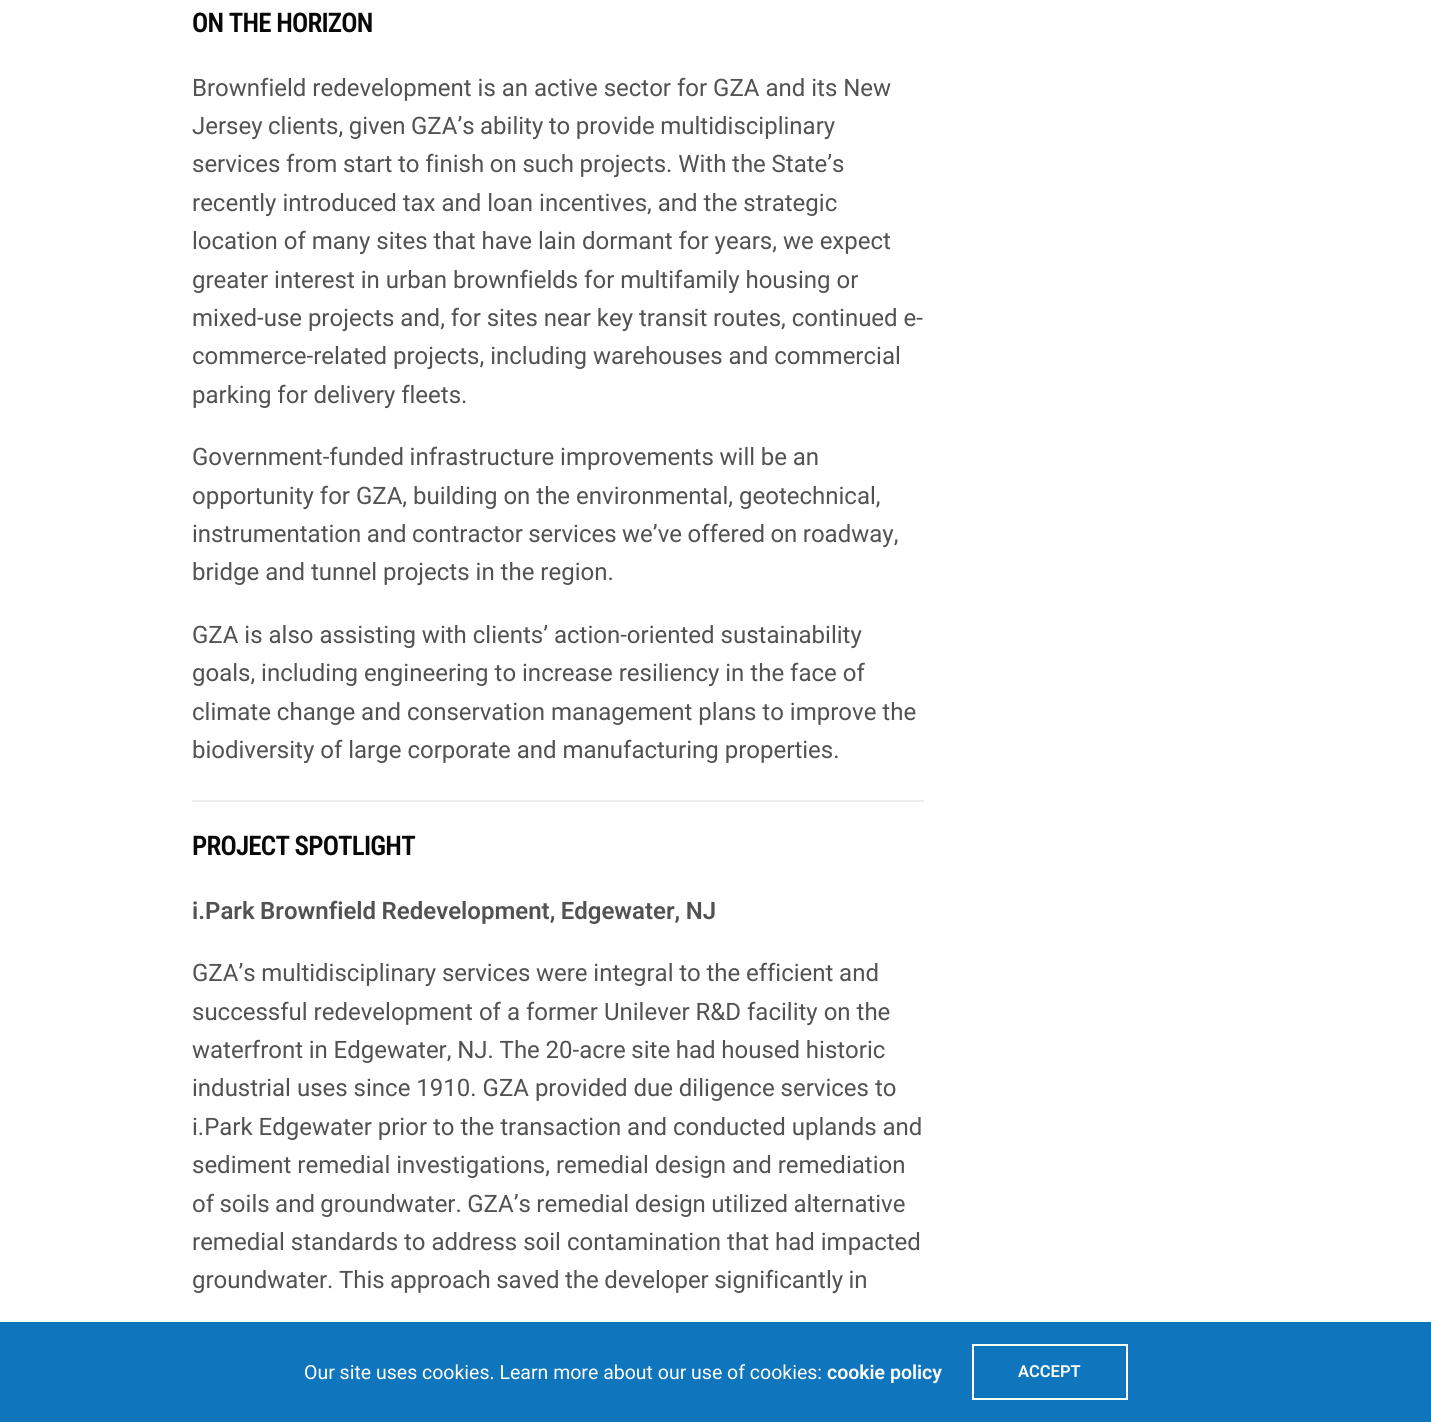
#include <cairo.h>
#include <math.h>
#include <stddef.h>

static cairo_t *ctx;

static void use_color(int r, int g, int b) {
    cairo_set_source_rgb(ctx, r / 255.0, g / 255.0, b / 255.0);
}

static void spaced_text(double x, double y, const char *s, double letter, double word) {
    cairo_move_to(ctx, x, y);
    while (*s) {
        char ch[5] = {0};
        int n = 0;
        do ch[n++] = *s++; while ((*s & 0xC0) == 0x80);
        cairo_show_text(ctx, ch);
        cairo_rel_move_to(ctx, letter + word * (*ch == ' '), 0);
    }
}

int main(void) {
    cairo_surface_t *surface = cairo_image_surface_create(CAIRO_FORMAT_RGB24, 1431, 1422);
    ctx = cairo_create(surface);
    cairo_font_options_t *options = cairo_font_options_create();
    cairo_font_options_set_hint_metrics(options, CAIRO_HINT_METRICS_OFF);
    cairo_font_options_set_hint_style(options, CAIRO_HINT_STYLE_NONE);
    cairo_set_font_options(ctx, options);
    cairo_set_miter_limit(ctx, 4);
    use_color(255, 255, 255);
    cairo_paint(ctx);
    cairo_select_font_face(ctx, "Roboto Condensed SemiBold", CAIRO_FONT_SLANT_NORMAL, CAIRO_FONT_WEIGHT_NORMAL);
    cairo_set_font_size(ctx, 27);
    use_color(8, 8, 8);
    spaced_text(192, 32, "ON THE HORIZON", -0.8, 0);
    cairo_select_font_face(ctx, "Roboto", CAIRO_FONT_SLANT_NORMAL, CAIRO_FONT_WEIGHT_NORMAL);
    cairo_set_font_size(ctx, 24);
    use_color(82, 82, 82);
    cairo_move_to(ctx, 192, 96);
    cairo_show_text(ctx, "Brownfield redevelopment is an active sector for GZA and its New");
    spaced_text(192, 134, "Jersey clients, given GZA’s ability to provide multidisciplinary", 0, -0.5);
    spaced_text(192, 172, "services from start to finish on such projects. With the State’s", 0, -0.25);
    cairo_move_to(ctx, 192, 211);
    cairo_show_text(ctx, "recently introduced tax and loan incentives, and the strategic");
    cairo_move_to(ctx, 192, 249);
    cairo_show_text(ctx, "location of many sites that have lain dormant for years, we expect");
    cairo_move_to(ctx, 192, 288);
    cairo_show_text(ctx, "greater interest in urban brownfields for multifamily housing or");
    spaced_text(192, 326, "mixed-use projects and, for sites near key transit routes, continued e-", 0, -0.1);
    cairo_move_to(ctx, 192, 364);
    cairo_show_text(ctx, "commerce-related projects, including warehouses and commercial");
    cairo_move_to(ctx, 192, 403);
    cairo_show_text(ctx, "parking for delivery fleets.");
    spaced_text(192, 465, "Government-funded infrastructure improvements will be an", 0, -0.25);
    cairo_move_to(ctx, 192, 504);
    cairo_show_text(ctx, "opportunity for GZA, building on the environmental, geotechnical,");
    spaced_text(192, 542, "instrumentation and contractor services we’ve offered on roadway,", 0, -0.5);
    cairo_move_to(ctx, 192, 580);
    cairo_show_text(ctx, "bridge and tunnel projects in the region.");
    cairo_move_to(ctx, 192, 643);
    cairo_show_text(ctx, "GZA is also assisting with clients’ action-oriented sustainability");
    cairo_move_to(ctx, 192, 681);
    cairo_show_text(ctx, "goals, including engineering to increase resiliency in the face of");
    cairo_move_to(ctx, 192, 720);
    cairo_show_text(ctx, "climate change and conservation management plans to improve the");
    cairo_move_to(ctx, 192, 758);
    cairo_show_text(ctx, "biodiversity of large corporate and manufacturing properties.");
    use_color(238, 238, 238);
    cairo_rectangle(ctx, 192, 800, 732, 2);
    cairo_fill(ctx);
    cairo_select_font_face(ctx, "Roboto Condensed SemiBold", CAIRO_FONT_SLANT_NORMAL, CAIRO_FONT_WEIGHT_NORMAL);
    cairo_set_font_size(ctx, 27);
    use_color(8, 8, 8);
    spaced_text(192, 855, "PROJECT SPOTLIGHT", -0.8, 0);
    cairo_select_font_face(ctx, "Roboto SemiBold", CAIRO_FONT_SLANT_NORMAL, CAIRO_FONT_WEIGHT_NORMAL);
    cairo_set_font_size(ctx, 24);
    use_color(82, 82, 82);
    spaced_text(192, 919, "i.Park Brownfield Redevelopment, Edgewater, NJ", 0, -0.5);
    cairo_select_font_face(ctx, "Roboto", CAIRO_FONT_SLANT_NORMAL, CAIRO_FONT_WEIGHT_NORMAL);
    spaced_text(192, 981, "GZA’s multidisciplinary services were integral to the efficient and", 0, -0.25);
    cairo_move_to(ctx, 192, 1020);
    cairo_show_text(ctx, "successful redevelopment of a former Unilever R&D facility on the");
    spaced_text(192, 1058, "waterfront in Edgewater, NJ. The 20-acre site had housed historic", 0, -0.25);
    cairo_move_to(ctx, 192, 1096);
    cairo_show_text(ctx, "industrial uses since 1910. GZA provided due diligence services to");
    cairo_move_to(ctx, 192, 1135);
    cairo_show_text(ctx, "i.Park Edgewater prior to the transaction and conducted uplands and");
    cairo_move_to(ctx, 192, 1173);
    cairo_show_text(ctx, "sediment remedial investigations, remedial design and remediation");
    spaced_text(192, 1212, "of soils and groundwater. GZA’s remedial design utilized alternative", 0, -0.5);
    cairo_move_to(ctx, 192, 1250);
    cairo_show_text(ctx, "remedial standards to address soil contamination that had impacted");
    spaced_text(192, 1288, "groundwater. This approach saved the developer significantly in", 0, -0.5);
    use_color(15, 117, 188);
    cairo_rectangle(ctx, 0, 1322, 1431, 100);
    cairo_fill(ctx);
    cairo_set_font_size(ctx, 19.5);
    use_color(255, 255, 255);
    cairo_move_to(ctx, 304, 1379);
    cairo_show_text(ctx, "Our site uses cookies. Learn more about our use of cookies:");
    cairo_select_font_face(ctx, "Roboto SemiBold", CAIRO_FONT_SLANT_NORMAL, CAIRO_FONT_WEIGHT_NORMAL);
    cairo_move_to(ctx, 827, 1379);
    cairo_show_text(ctx, "cookie policy");
    cairo_rectangle(ctx, 973, 1345, 154, 54);
    cairo_stroke(ctx);
    cairo_set_font_size(ctx, 16.5);
    cairo_move_to(ctx, 1018, 1377);
    cairo_show_text(ctx, "ACCEPT");
    cairo_surface_write_to_png(surface, "result.png");
    cairo_font_options_destroy(options);
    cairo_destroy(ctx);
    cairo_surface_destroy(surface);
    return 0;
}
